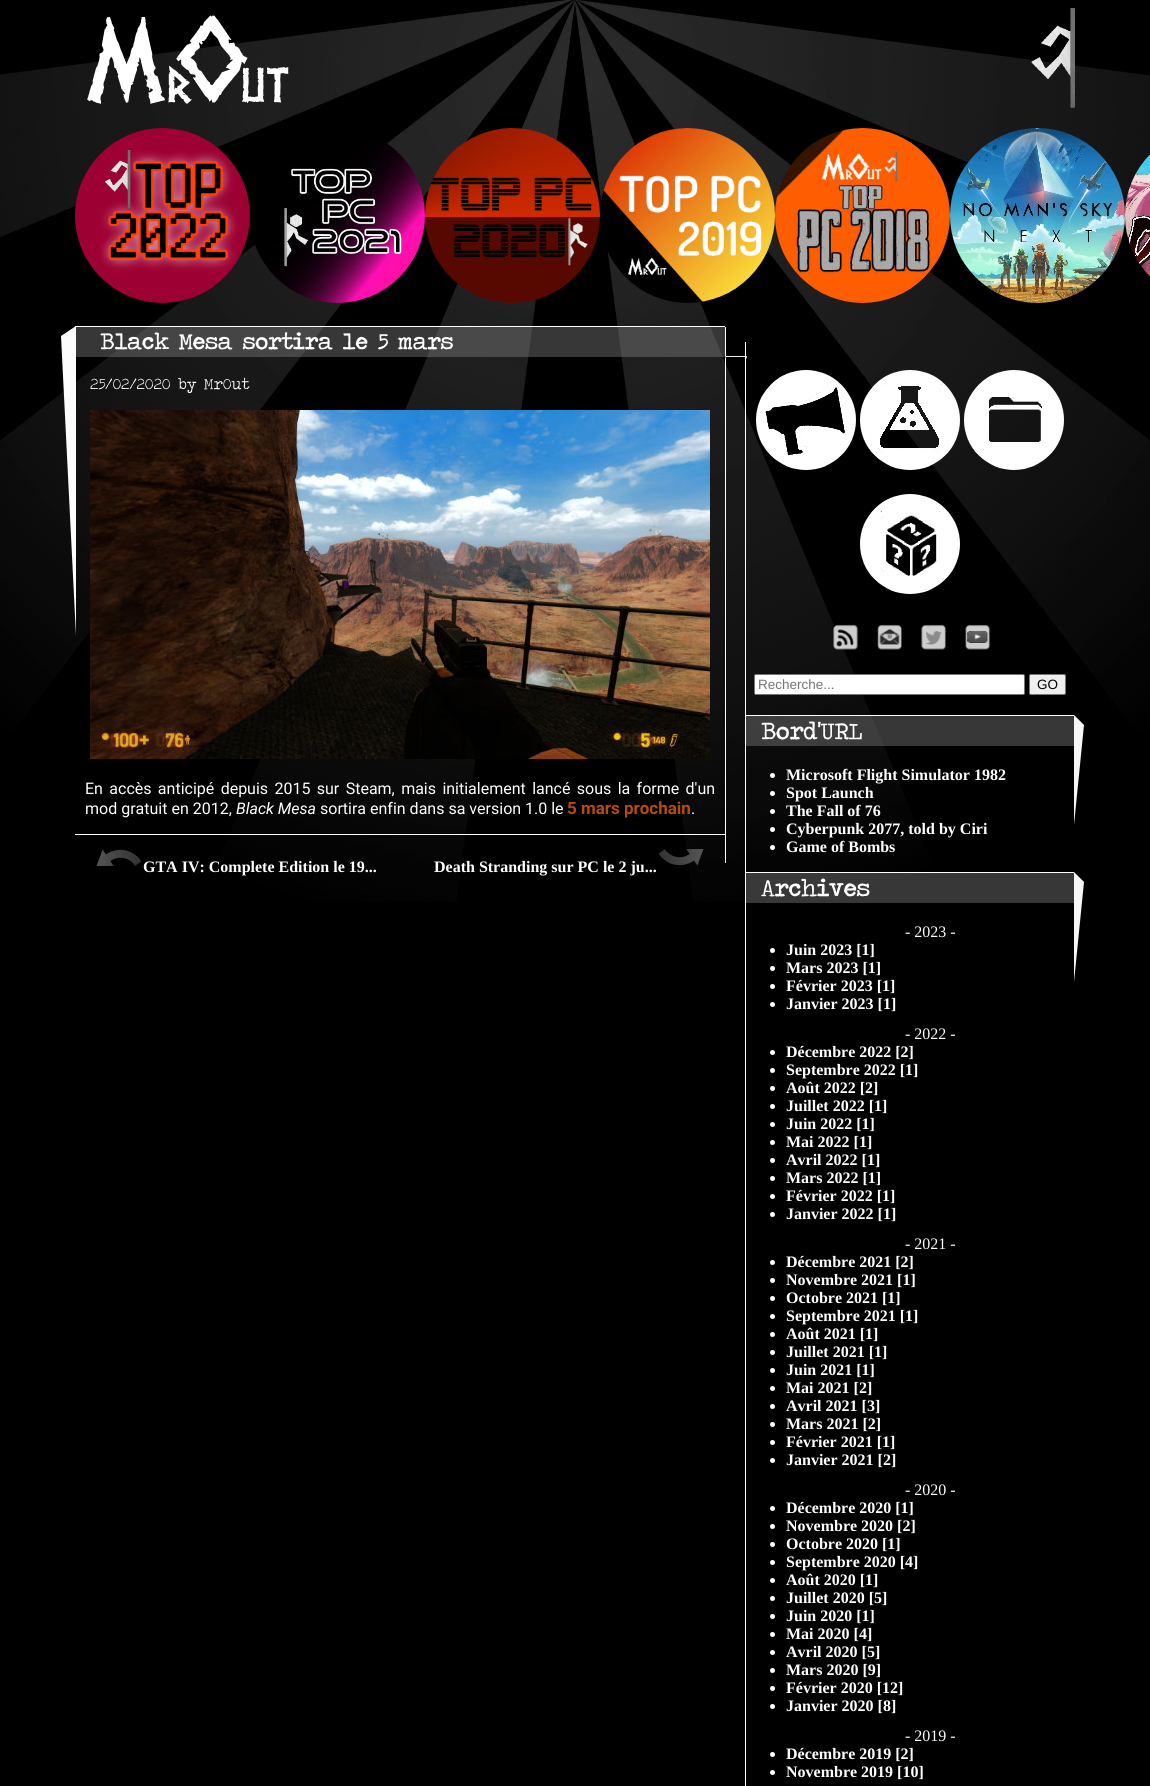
#include <cairo.h>
#include <math.h>
#include <stddef.h>

static cairo_t *ctx;

static void use_color(int r, int g, int b) {
    cairo_set_source_rgb(ctx, r / 255.0, g / 255.0, b / 255.0);
}

static void spaced_text(double x, double y, const char *s, double letter, double word) {
    cairo_move_to(ctx, x, y);
    while (*s) {
        char ch[5] = {0};
        int n = 0;
        do ch[n++] = *s++; while ((*s & 0xC0) == 0x80);
        cairo_show_text(ctx, ch);
        cairo_rel_move_to(ctx, letter + word * (*ch == ' '), 0);
    }
}

static void round_rect(double x, double y, double w, double h, double r) {
    cairo_new_sub_path(ctx);
    cairo_arc(ctx, x + w - r, y + h - r, r, 0, M_PI / 2);
    cairo_arc(ctx, x + r, y + h - r, r, M_PI / 2, M_PI);
    cairo_arc(ctx, x + r, y + r, r, M_PI, 1.5 * M_PI);
    cairo_arc(ctx, x + w - r, y + r, r, 1.5 * M_PI, 2 * M_PI);
    cairo_close_path(ctx);
}

static void picture(const char *path, double x, double y, double w, double h) {
    cairo_surface_t *image = cairo_image_surface_create_from_png(path);
    cairo_save(ctx);
    cairo_set_source_surface(ctx, image, x, y);
    cairo_rectangle(ctx, x, y, w, h);
    cairo_fill(ctx);
    cairo_restore(ctx);
    cairo_surface_destroy(image);
}

int main(void) {
    cairo_surface_t *surface = cairo_image_surface_create(CAIRO_FORMAT_RGB24, 1150, 1786);
    ctx = cairo_create(surface);
    cairo_font_options_t *options = cairo_font_options_create();
    cairo_font_options_set_hint_metrics(options, CAIRO_HINT_METRICS_OFF);
    cairo_font_options_set_hint_style(options, CAIRO_HINT_STYLE_NONE);
    cairo_set_font_options(ctx, options);
    cairo_set_miter_limit(ctx, 4);
    use_color(0, 0, 0);
    cairo_paint(ctx);
    picture("img1.png", 0, 0, 1150, 902);
    picture("img2.png", 87, 8, 988, 100);
    picture("img3.png", 75, 128, 175, 175);
    picture("img4.png", 255, 142, 170, 161);
    picture("img5.png", 425, 128, 175, 175);
    picture("img6.png", 601, 128, 174, 175);
    picture("img7.png", 775, 128, 175, 175);
    picture("img8.png", 950, 128, 175, 175);
    picture("img9.png", 1125, 154, 25, 123);
    use_color(255, 255, 255);
    cairo_rectangle(ctx, 725, 327, 1, 536);
    cairo_fill(ctx);
    cairo_set_source_rgba(ctx, 0.525, 0.525, 0.525, 0.41);
    cairo_rectangle(ctx, 76, 327, 649, 30);
    cairo_fill(ctx);
    use_color(255, 255, 255);
    cairo_rectangle(ctx, 75, 326, 650, 1);
    cairo_fill(ctx);
    use_color(253, 253, 253);
    cairo_new_path(ctx);
    cairo_move_to(ctx, 76, 326);
    cairo_line_to(ctx, 76, 636);
    cairo_line_to(ctx, 61, 336);
    cairo_close_path(ctx);
    cairo_fill(ctx);
    cairo_select_font_face(ctx, "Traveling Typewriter", CAIRO_FONT_SLANT_NORMAL, CAIRO_FONT_WEIGHT_BOLD);
    cairo_set_font_size(ctx, 23);
    use_color(255, 255, 255);
    cairo_move_to(ctx, 100, 349);
    cairo_show_text(ctx, "Black Mesa sortira le 5 mars");
    cairo_select_font_face(ctx, "Traveling Typewriter", CAIRO_FONT_SLANT_NORMAL, CAIRO_FONT_WEIGHT_NORMAL);
    cairo_set_font_size(ctx, 16);
    cairo_move_to(ctx, 90, 389);
    cairo_show_text(ctx, "25/02/2020 by MrOut");
    picture("img10.png", 90, 410, 620, 349);
    cairo_select_font_face(ctx, "Roboto", CAIRO_FONT_SLANT_NORMAL, CAIRO_FONT_WEIGHT_NORMAL);
    spaced_text(85, 794, "En accès anticipé depuis 2015 sur Steam, mais initialement lancé sous la forme d'un", 0, 2.4);
    cairo_move_to(ctx, 85, 814);
    cairo_show_text(ctx, "mod gratuit en 2012,");
    cairo_select_font_face(ctx, "Roboto", CAIRO_FONT_SLANT_ITALIC, CAIRO_FONT_WEIGHT_NORMAL);
    cairo_move_to(ctx, 236, 814);
    cairo_show_text(ctx, "Black Mesa");
    cairo_select_font_face(ctx, "Roboto", CAIRO_FONT_SLANT_NORMAL, CAIRO_FONT_WEIGHT_NORMAL);
    cairo_move_to(ctx, 320, 814);
    cairo_show_text(ctx, "sortira enfin dans sa version 1.0 le");
    cairo_select_font_face(ctx, "Roboto", CAIRO_FONT_SLANT_NORMAL, CAIRO_FONT_WEIGHT_BOLD);
    cairo_set_font_size(ctx, 17);
    use_color(183, 76, 11);
    cairo_move_to(ctx, 567, 814);
    cairo_show_text(ctx, "5 mars prochain");
    cairo_select_font_face(ctx, "Roboto", CAIRO_FONT_SLANT_NORMAL, CAIRO_FONT_WEIGHT_NORMAL);
    cairo_set_font_size(ctx, 16);
    use_color(255, 255, 255);
    cairo_move_to(ctx, 691, 814);
    cairo_show_text(ctx, ".");
    cairo_rectangle(ctx, 75, 834, 650, 1);
    cairo_fill(ctx);
    picture("img11.png", 96, 849, 46, 17);
    cairo_select_font_face(ctx, "Liberation Serif", CAIRO_FONT_SLANT_NORMAL, CAIRO_FONT_WEIGHT_BOLD);
    cairo_move_to(ctx, 143, 872);
    cairo_show_text(ctx, "GTA IV: Complete Edition le 19...");
    picture("img12.png", 658, 849, 46, 17);
    cairo_move_to(ctx, 434, 872);
    cairo_show_text(ctx, "Death Stranding sur PC le 2 ju...");
    cairo_rectangle(ctx, 745, 342, 1, 1444);
    cairo_fill(ctx);
    cairo_set_source_rgba(ctx, 0.933, 0.961, 0.949, 0.98);
    cairo_new_path(ctx);
    cairo_move_to(ctx, 725, 356);
    cairo_line_to(ctx, 747, 356);
    cairo_line_to(ctx, 746, 357);
    cairo_line_to(ctx, 726, 357);
    cairo_close_path(ctx);
    cairo_fill(ctx);
    use_color(255, 255, 255);
    cairo_new_path(ctx);
    cairo_move_to(ctx, 747, 356);
    cairo_line_to(ctx, 747, 359);
    cairo_line_to(ctx, 746, 357);
    cairo_close_path(ctx);
    cairo_fill(ctx);
    cairo_set_source_rgba(ctx, 0.243, 0.251, 0.243, 0.55);
    cairo_new_path(ctx);
    cairo_move_to(ctx, 725, 359);
    cairo_line_to(ctx, 725, 356);
    cairo_line_to(ctx, 726, 357);
    cairo_close_path(ctx);
    cairo_fill(ctx);
    picture("img13.png", 756, 370, 100, 100);
    picture("img14.png", 860, 370, 100, 100);
    picture("img15.png", 964, 370, 100, 100);
    picture("img16.png", 860, 494, 100, 100);
    picture("img17.png", 833, 624, 26, 26);
    picture("img18.png", 877, 624, 25, 26);
    picture("img19.png", 921, 624, 25, 26);
    picture("img20.png", 965, 624, 26, 26);
    use_color(255, 255, 255);
    round_rect(754.5, 674.5, 270, 20, 1.5);
    cairo_fill_preserve(ctx);
    use_color(118, 118, 118);
    cairo_set_line_width(ctx, 1);
    cairo_stroke(ctx);
    cairo_select_font_face(ctx, "Liberation Sans", CAIRO_FONT_SLANT_NORMAL, CAIRO_FONT_WEIGHT_NORMAL);
    cairo_set_font_size(ctx, 13.5);
    use_color(117, 117, 117);
    cairo_move_to(ctx, 758, 689);
    cairo_show_text(ctx, "Recherche...");
    use_color(239, 239, 239);
    round_rect(1029.5, 674.5, 36, 20, 1.5);
    cairo_fill_preserve(ctx);
    use_color(118, 118, 118);
    cairo_stroke(ctx);
    use_color(0, 0, 0);
    cairo_move_to(ctx, 1037, 689);
    cairo_show_text(ctx, "GO");
    cairo_set_source_rgba(ctx, 0.525, 0.525, 0.525, 0.41);
    cairo_rectangle(ctx, 746, 716, 328, 30);
    cairo_fill(ctx);
    use_color(255, 255, 255);
    cairo_rectangle(ctx, 746, 715, 328, 1);
    cairo_fill(ctx);
    cairo_select_font_face(ctx, "Traveling Typewriter", CAIRO_FONT_SLANT_NORMAL, CAIRO_FONT_WEIGHT_BOLD);
    cairo_set_font_size(ctx, 24);
    cairo_move_to(ctx, 761, 739);
    cairo_show_text(ctx, "Bord'URL");
    use_color(247, 247, 247);
    cairo_new_path(ctx);
    cairo_move_to(ctx, 1074, 825);
    cairo_line_to(ctx, 1074, 715);
    cairo_line_to(ctx, 1084, 725);
    cairo_close_path(ctx);
    cairo_fill(ctx);
    use_color(255, 255, 255);
    cairo_arc(ctx, 772.5, 775.5, 2.5, 0, 2 * M_PI);
    cairo_fill(ctx);
    cairo_select_font_face(ctx, "Liberation Serif", CAIRO_FONT_SLANT_NORMAL, CAIRO_FONT_WEIGHT_BOLD);
    cairo_set_font_size(ctx, 16);
    cairo_move_to(ctx, 786, 780);
    cairo_show_text(ctx, "Microsoft Flight Simulator 1982");
    cairo_new_path(ctx);
    cairo_arc(ctx, 772.5, 793.5, 2.5, 0, 2 * M_PI);
    cairo_fill(ctx);
    cairo_move_to(ctx, 786, 798);
    cairo_show_text(ctx, "Spot Launch");
    cairo_new_path(ctx);
    cairo_arc(ctx, 772.5, 811.5, 2.5, 0, 2 * M_PI);
    cairo_fill(ctx);
    cairo_move_to(ctx, 786, 816);
    cairo_show_text(ctx, "The Fall of 76");
    cairo_new_path(ctx);
    cairo_arc(ctx, 772.5, 829.5, 2.5, 0, 2 * M_PI);
    cairo_fill(ctx);
    cairo_move_to(ctx, 786, 834);
    cairo_show_text(ctx, "Cyberpunk 2077, told by Ciri");
    cairo_new_path(ctx);
    cairo_arc(ctx, 772.5, 847.5, 2.5, 0, 2 * M_PI);
    cairo_fill(ctx);
    cairo_move_to(ctx, 786, 852);
    cairo_show_text(ctx, "Game of Bombs");
    cairo_set_source_rgba(ctx, 0.525, 0.525, 0.525, 0.41);
    cairo_rectangle(ctx, 746, 873, 328, 30);
    cairo_fill(ctx);
    use_color(255, 255, 255);
    cairo_rectangle(ctx, 746, 872, 328, 1);
    cairo_fill(ctx);
    cairo_select_font_face(ctx, "Traveling Typewriter", CAIRO_FONT_SLANT_NORMAL, CAIRO_FONT_WEIGHT_BOLD);
    cairo_set_font_size(ctx, 24);
    cairo_move_to(ctx, 761, 896);
    cairo_show_text(ctx, "Archives");
    use_color(247, 247, 247);
    cairo_new_path(ctx);
    cairo_move_to(ctx, 1074, 982);
    cairo_line_to(ctx, 1074, 872);
    cairo_line_to(ctx, 1084, 882);
    cairo_close_path(ctx);
    cairo_fill(ctx);
    cairo_select_font_face(ctx, "Liberation Serif", CAIRO_FONT_SLANT_NORMAL, CAIRO_FONT_WEIGHT_NORMAL);
    cairo_set_font_size(ctx, 16);
    use_color(255, 255, 255);
    cairo_move_to(ctx, 905, 937);
    cairo_show_text(ctx, "- 2023 -");
    cairo_new_path(ctx);
    cairo_arc(ctx, 772.5, 950.5, 2.5, 0, 2 * M_PI);
    cairo_fill(ctx);
    cairo_select_font_face(ctx, "Liberation Serif", CAIRO_FONT_SLANT_NORMAL, CAIRO_FONT_WEIGHT_BOLD);
    cairo_move_to(ctx, 786, 955);
    cairo_show_text(ctx, "Juin 2023 [1]");
    cairo_new_path(ctx);
    cairo_arc(ctx, 772.5, 968.5, 2.5, 0, 2 * M_PI);
    cairo_fill(ctx);
    cairo_move_to(ctx, 786, 973);
    cairo_show_text(ctx, "Mars 2023 [1]");
    cairo_new_path(ctx);
    cairo_arc(ctx, 772.5, 986.5, 2.5, 0, 2 * M_PI);
    cairo_fill(ctx);
    cairo_move_to(ctx, 786, 991);
    cairo_show_text(ctx, "Février 2023 [1]");
    cairo_new_path(ctx);
    cairo_arc(ctx, 772.5, 1004.5, 2.5, 0, 2 * M_PI);
    cairo_fill(ctx);
    cairo_move_to(ctx, 786, 1009);
    cairo_show_text(ctx, "Janvier 2023 [1]");
    cairo_select_font_face(ctx, "Liberation Serif", CAIRO_FONT_SLANT_NORMAL, CAIRO_FONT_WEIGHT_NORMAL);
    cairo_move_to(ctx, 905, 1039);
    cairo_show_text(ctx, "- 2022 -");
    cairo_new_path(ctx);
    cairo_arc(ctx, 772.5, 1052.5, 2.5, 0, 2 * M_PI);
    cairo_fill(ctx);
    cairo_select_font_face(ctx, "Liberation Serif", CAIRO_FONT_SLANT_NORMAL, CAIRO_FONT_WEIGHT_BOLD);
    cairo_move_to(ctx, 786, 1057);
    cairo_show_text(ctx, "Décembre 2022 [2]");
    cairo_new_path(ctx);
    cairo_arc(ctx, 772.5, 1070.5, 2.5, 0, 2 * M_PI);
    cairo_fill(ctx);
    cairo_move_to(ctx, 786, 1075);
    cairo_show_text(ctx, "Septembre 2022 [1]");
    cairo_new_path(ctx);
    cairo_arc(ctx, 772.5, 1088.5, 2.5, 0, 2 * M_PI);
    cairo_fill(ctx);
    cairo_move_to(ctx, 786, 1093);
    cairo_show_text(ctx, "Août 2022 [2]");
    cairo_new_path(ctx);
    cairo_arc(ctx, 772.5, 1106.5, 2.5, 0, 2 * M_PI);
    cairo_fill(ctx);
    cairo_move_to(ctx, 786, 1111);
    cairo_show_text(ctx, "Juillet 2022 [1]");
    cairo_new_path(ctx);
    cairo_arc(ctx, 772.5, 1124.5, 2.5, 0, 2 * M_PI);
    cairo_fill(ctx);
    cairo_move_to(ctx, 786, 1129);
    cairo_show_text(ctx, "Juin 2022 [1]");
    cairo_new_path(ctx);
    cairo_arc(ctx, 772.5, 1142.5, 2.5, 0, 2 * M_PI);
    cairo_fill(ctx);
    cairo_move_to(ctx, 786, 1147);
    cairo_show_text(ctx, "Mai 2022 [1]");
    cairo_new_path(ctx);
    cairo_arc(ctx, 772.5, 1160.5, 2.5, 0, 2 * M_PI);
    cairo_fill(ctx);
    cairo_move_to(ctx, 786, 1165);
    cairo_show_text(ctx, "Avril 2022 [1]");
    cairo_new_path(ctx);
    cairo_arc(ctx, 772.5, 1178.5, 2.5, 0, 2 * M_PI);
    cairo_fill(ctx);
    cairo_move_to(ctx, 786, 1183);
    cairo_show_text(ctx, "Mars 2022 [1]");
    cairo_new_path(ctx);
    cairo_arc(ctx, 772.5, 1196.5, 2.5, 0, 2 * M_PI);
    cairo_fill(ctx);
    cairo_move_to(ctx, 786, 1201);
    cairo_show_text(ctx, "Février 2022 [1]");
    cairo_new_path(ctx);
    cairo_arc(ctx, 772.5, 1214.5, 2.5, 0, 2 * M_PI);
    cairo_fill(ctx);
    cairo_move_to(ctx, 786, 1219);
    cairo_show_text(ctx, "Janvier 2022 [1]");
    cairo_select_font_face(ctx, "Liberation Serif", CAIRO_FONT_SLANT_NORMAL, CAIRO_FONT_WEIGHT_NORMAL);
    cairo_move_to(ctx, 905, 1249);
    cairo_show_text(ctx, "- 2021 -");
    cairo_new_path(ctx);
    cairo_arc(ctx, 772.5, 1262.5, 2.5, 0, 2 * M_PI);
    cairo_fill(ctx);
    cairo_select_font_face(ctx, "Liberation Serif", CAIRO_FONT_SLANT_NORMAL, CAIRO_FONT_WEIGHT_BOLD);
    cairo_move_to(ctx, 786, 1267);
    cairo_show_text(ctx, "Décembre 2021 [2]");
    cairo_new_path(ctx);
    cairo_arc(ctx, 772.5, 1280.5, 2.5, 0, 2 * M_PI);
    cairo_fill(ctx);
    cairo_move_to(ctx, 786, 1285);
    cairo_show_text(ctx, "Novembre 2021 [1]");
    cairo_new_path(ctx);
    cairo_arc(ctx, 772.5, 1298.5, 2.5, 0, 2 * M_PI);
    cairo_fill(ctx);
    cairo_move_to(ctx, 786, 1303);
    cairo_show_text(ctx, "Octobre 2021 [1]");
    cairo_new_path(ctx);
    cairo_arc(ctx, 772.5, 1316.5, 2.5, 0, 2 * M_PI);
    cairo_fill(ctx);
    cairo_move_to(ctx, 786, 1321);
    cairo_show_text(ctx, "Septembre 2021 [1]");
    cairo_new_path(ctx);
    cairo_arc(ctx, 772.5, 1334.5, 2.5, 0, 2 * M_PI);
    cairo_fill(ctx);
    cairo_move_to(ctx, 786, 1339);
    cairo_show_text(ctx, "Août 2021 [1]");
    cairo_new_path(ctx);
    cairo_arc(ctx, 772.5, 1352.5, 2.5, 0, 2 * M_PI);
    cairo_fill(ctx);
    cairo_move_to(ctx, 786, 1357);
    cairo_show_text(ctx, "Juillet 2021 [1]");
    cairo_new_path(ctx);
    cairo_arc(ctx, 772.5, 1370.5, 2.5, 0, 2 * M_PI);
    cairo_fill(ctx);
    cairo_move_to(ctx, 786, 1375);
    cairo_show_text(ctx, "Juin 2021 [1]");
    cairo_new_path(ctx);
    cairo_arc(ctx, 772.5, 1388.5, 2.5, 0, 2 * M_PI);
    cairo_fill(ctx);
    cairo_move_to(ctx, 786, 1393);
    cairo_show_text(ctx, "Mai 2021 [2]");
    cairo_new_path(ctx);
    cairo_arc(ctx, 772.5, 1406.5, 2.5, 0, 2 * M_PI);
    cairo_fill(ctx);
    cairo_move_to(ctx, 786, 1411);
    cairo_show_text(ctx, "Avril 2021 [3]");
    cairo_new_path(ctx);
    cairo_arc(ctx, 772.5, 1424.5, 2.5, 0, 2 * M_PI);
    cairo_fill(ctx);
    cairo_move_to(ctx, 786, 1429);
    cairo_show_text(ctx, "Mars 2021 [2]");
    cairo_new_path(ctx);
    cairo_arc(ctx, 772.5, 1442.5, 2.5, 0, 2 * M_PI);
    cairo_fill(ctx);
    cairo_move_to(ctx, 786, 1447);
    cairo_show_text(ctx, "Février 2021 [1]");
    cairo_new_path(ctx);
    cairo_arc(ctx, 772.5, 1460.5, 2.5, 0, 2 * M_PI);
    cairo_fill(ctx);
    cairo_move_to(ctx, 786, 1465);
    cairo_show_text(ctx, "Janvier 2021 [2]");
    cairo_select_font_face(ctx, "Liberation Serif", CAIRO_FONT_SLANT_NORMAL, CAIRO_FONT_WEIGHT_NORMAL);
    cairo_move_to(ctx, 905, 1495);
    cairo_show_text(ctx, "- 2020 -");
    cairo_new_path(ctx);
    cairo_arc(ctx, 772.5, 1508.5, 2.5, 0, 2 * M_PI);
    cairo_fill(ctx);
    cairo_select_font_face(ctx, "Liberation Serif", CAIRO_FONT_SLANT_NORMAL, CAIRO_FONT_WEIGHT_BOLD);
    cairo_move_to(ctx, 786, 1513);
    cairo_show_text(ctx, "Décembre 2020 [1]");
    cairo_new_path(ctx);
    cairo_arc(ctx, 772.5, 1526.5, 2.5, 0, 2 * M_PI);
    cairo_fill(ctx);
    cairo_move_to(ctx, 786, 1531);
    cairo_show_text(ctx, "Novembre 2020 [2]");
    cairo_new_path(ctx);
    cairo_arc(ctx, 772.5, 1544.5, 2.5, 0, 2 * M_PI);
    cairo_fill(ctx);
    cairo_move_to(ctx, 786, 1549);
    cairo_show_text(ctx, "Octobre 2020 [1]");
    cairo_new_path(ctx);
    cairo_arc(ctx, 772.5, 1562.5, 2.5, 0, 2 * M_PI);
    cairo_fill(ctx);
    cairo_move_to(ctx, 786, 1567);
    cairo_show_text(ctx, "Septembre 2020 [4]");
    cairo_new_path(ctx);
    cairo_arc(ctx, 772.5, 1580.5, 2.5, 0, 2 * M_PI);
    cairo_fill(ctx);
    cairo_move_to(ctx, 786, 1585);
    cairo_show_text(ctx, "Août 2020 [1]");
    cairo_new_path(ctx);
    cairo_arc(ctx, 772.5, 1598.5, 2.5, 0, 2 * M_PI);
    cairo_fill(ctx);
    cairo_move_to(ctx, 786, 1603);
    cairo_show_text(ctx, "Juillet 2020 [5]");
    cairo_new_path(ctx);
    cairo_arc(ctx, 772.5, 1616.5, 2.5, 0, 2 * M_PI);
    cairo_fill(ctx);
    cairo_move_to(ctx, 786, 1621);
    cairo_show_text(ctx, "Juin 2020 [1]");
    cairo_new_path(ctx);
    cairo_arc(ctx, 772.5, 1634.5, 2.5, 0, 2 * M_PI);
    cairo_fill(ctx);
    cairo_move_to(ctx, 786, 1639);
    cairo_show_text(ctx, "Mai 2020 [4]");
    cairo_new_path(ctx);
    cairo_arc(ctx, 772.5, 1652.5, 2.5, 0, 2 * M_PI);
    cairo_fill(ctx);
    cairo_move_to(ctx, 786, 1657);
    cairo_show_text(ctx, "Avril 2020 [5]");
    cairo_new_path(ctx);
    cairo_arc(ctx, 772.5, 1670.5, 2.5, 0, 2 * M_PI);
    cairo_fill(ctx);
    cairo_move_to(ctx, 786, 1675);
    cairo_show_text(ctx, "Mars 2020 [9]");
    cairo_new_path(ctx);
    cairo_arc(ctx, 772.5, 1688.5, 2.5, 0, 2 * M_PI);
    cairo_fill(ctx);
    cairo_move_to(ctx, 786, 1693);
    cairo_show_text(ctx, "Février 2020 [12]");
    cairo_new_path(ctx);
    cairo_arc(ctx, 772.5, 1706.5, 2.5, 0, 2 * M_PI);
    cairo_fill(ctx);
    cairo_move_to(ctx, 786, 1711);
    cairo_show_text(ctx, "Janvier 2020 [8]");
    cairo_select_font_face(ctx, "Liberation Serif", CAIRO_FONT_SLANT_NORMAL, CAIRO_FONT_WEIGHT_NORMAL);
    cairo_move_to(ctx, 905, 1741);
    cairo_show_text(ctx, "- 2019 -");
    cairo_new_path(ctx);
    cairo_arc(ctx, 772.5, 1754.5, 2.5, 0, 2 * M_PI);
    cairo_fill(ctx);
    cairo_select_font_face(ctx, "Liberation Serif", CAIRO_FONT_SLANT_NORMAL, CAIRO_FONT_WEIGHT_BOLD);
    cairo_move_to(ctx, 786, 1759);
    cairo_show_text(ctx, "Décembre 2019 [2]");
    cairo_new_path(ctx);
    cairo_arc(ctx, 772.5, 1772.5, 2.5, 0, 2 * M_PI);
    cairo_fill(ctx);
    cairo_move_to(ctx, 786, 1777);
    cairo_show_text(ctx, "Novembre 2019 [10]");
    cairo_surface_write_to_png(surface, "result.png");
    cairo_font_options_destroy(options);
    cairo_destroy(ctx);
    cairo_surface_destroy(surface);
    return 0;
}
